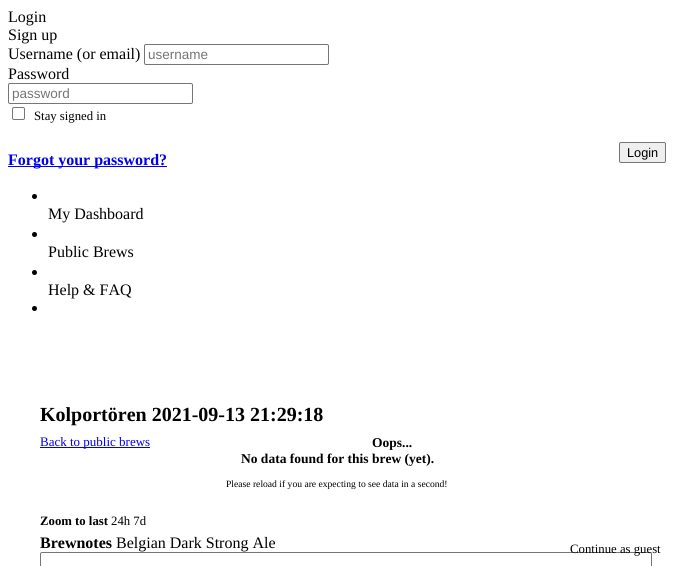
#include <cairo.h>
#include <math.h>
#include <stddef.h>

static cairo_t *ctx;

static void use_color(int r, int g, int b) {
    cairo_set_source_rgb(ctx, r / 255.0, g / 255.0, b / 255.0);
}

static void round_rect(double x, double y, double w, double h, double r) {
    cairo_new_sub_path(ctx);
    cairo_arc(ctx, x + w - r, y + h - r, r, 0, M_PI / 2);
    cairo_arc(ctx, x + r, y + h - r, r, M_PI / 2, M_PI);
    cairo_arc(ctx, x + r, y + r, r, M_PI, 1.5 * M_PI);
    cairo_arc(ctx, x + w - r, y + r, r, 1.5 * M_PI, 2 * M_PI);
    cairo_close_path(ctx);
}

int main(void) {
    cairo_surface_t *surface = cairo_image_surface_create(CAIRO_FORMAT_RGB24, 674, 566);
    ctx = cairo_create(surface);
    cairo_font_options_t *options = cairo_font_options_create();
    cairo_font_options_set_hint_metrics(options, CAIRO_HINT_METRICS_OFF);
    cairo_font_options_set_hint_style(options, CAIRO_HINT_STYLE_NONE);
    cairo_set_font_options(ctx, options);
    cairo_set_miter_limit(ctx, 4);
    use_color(255, 255, 255);
    cairo_paint(ctx);
    cairo_select_font_face(ctx, "Liberation Serif", CAIRO_FONT_SLANT_NORMAL, CAIRO_FONT_WEIGHT_NORMAL);
    cairo_set_font_size(ctx, 16);
    use_color(0, 0, 0);
    cairo_move_to(ctx, 8, 22);
    cairo_show_text(ctx, "Login");
    cairo_move_to(ctx, 8, 40);
    cairo_show_text(ctx, "Sign up");
    cairo_move_to(ctx, 8, 59);
    cairo_show_text(ctx, "Username (or email)");
    round_rect(144.5, 44.5, 184, 20, 1.5);
    use_color(118, 118, 118);
    cairo_set_line_width(ctx, 1);
    cairo_stroke(ctx);
    cairo_select_font_face(ctx, "Liberation Sans", CAIRO_FONT_SLANT_NORMAL, CAIRO_FONT_WEIGHT_NORMAL);
    cairo_set_font_size(ctx, 13.5);
    use_color(117, 117, 117);
    cairo_move_to(ctx, 148, 59);
    cairo_show_text(ctx, "username");
    cairo_select_font_face(ctx, "Liberation Serif", CAIRO_FONT_SLANT_NORMAL, CAIRO_FONT_WEIGHT_NORMAL);
    cairo_set_font_size(ctx, 16);
    use_color(0, 0, 0);
    cairo_move_to(ctx, 8, 79);
    cairo_show_text(ctx, "Password");
    round_rect(8.5, 83.5, 184, 20, 1.5);
    use_color(118, 118, 118);
    cairo_stroke(ctx);
    cairo_select_font_face(ctx, "Liberation Sans", CAIRO_FONT_SLANT_NORMAL, CAIRO_FONT_WEIGHT_NORMAL);
    cairo_set_font_size(ctx, 13.5);
    use_color(117, 117, 117);
    cairo_move_to(ctx, 12, 98);
    cairo_show_text(ctx, "password");
    round_rect(12.5, 107.5, 12, 12, 1.5);
    use_color(118, 118, 118);
    cairo_stroke(ctx);
    cairo_select_font_face(ctx, "Liberation Serif", CAIRO_FONT_SLANT_NORMAL, CAIRO_FONT_WEIGHT_NORMAL);
    cairo_set_font_size(ctx, 12.75);
    use_color(0, 0, 0);
    cairo_move_to(ctx, 34, 120);
    cairo_show_text(ctx, "Stay signed in");
    use_color(0, 0, 238);
    cairo_rectangle(ctx, 8, 166, 159, 1);
    cairo_fill(ctx);
    cairo_select_font_face(ctx, "Liberation Serif", CAIRO_FONT_SLANT_NORMAL, CAIRO_FONT_WEIGHT_BOLD);
    cairo_set_font_size(ctx, 16);
    cairo_move_to(ctx, 8, 165);
    cairo_show_text(ctx, "Forgot your password?");
    use_color(239, 239, 239);
    round_rect(619.5, 142.5, 46, 20, 1.5);
    cairo_fill_preserve(ctx);
    use_color(118, 118, 118);
    cairo_stroke(ctx);
    cairo_select_font_face(ctx, "Liberation Sans", CAIRO_FONT_SLANT_NORMAL, CAIRO_FONT_WEIGHT_NORMAL);
    cairo_set_font_size(ctx, 12.75);
    use_color(0, 0, 0);
    cairo_move_to(ctx, 627, 157);
    cairo_show_text(ctx, "Login");
    round_rect(40.5, 552.5, 611, 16, 1.5);
    use_color(118, 118, 118);
    cairo_stroke(ctx);
    cairo_select_font_face(ctx, "Liberation Serif", CAIRO_FONT_SLANT_NORMAL, CAIRO_FONT_WEIGHT_NORMAL);
    use_color(0, 0, 0);
    cairo_move_to(ctx, 570, 553);
    cairo_show_text(ctx, "Continue as guest");
    cairo_new_path(ctx);
    cairo_arc(ctx, 34.5, 196.5, 2.5, 0, 2 * M_PI);
    cairo_fill(ctx);
    cairo_set_font_size(ctx, 16);
    cairo_move_to(ctx, 48, 219);
    cairo_show_text(ctx, "My Dashboard");
    cairo_new_path(ctx);
    cairo_arc(ctx, 34.5, 234.5, 2.5, 0, 2 * M_PI);
    cairo_fill(ctx);
    cairo_move_to(ctx, 48, 257);
    cairo_show_text(ctx, "Public Brews");
    cairo_new_path(ctx);
    cairo_arc(ctx, 34.5, 272.5, 2.5, 0, 2 * M_PI);
    cairo_fill(ctx);
    cairo_move_to(ctx, 48, 295);
    cairo_show_text(ctx, "Help & FAQ");
    cairo_new_path(ctx);
    cairo_arc(ctx, 34.5, 308.5, 2.5, 0, 2 * M_PI);
    cairo_fill(ctx);
    cairo_select_font_face(ctx, "Liberation Serif", CAIRO_FONT_SLANT_NORMAL, CAIRO_FONT_WEIGHT_BOLD);
    cairo_set_font_size(ctx, 20);
    cairo_move_to(ctx, 40, 421);
    cairo_show_text(ctx, "Kolportören 2021-09-13 21:29:18");
    use_color(0, 0, 238);
    cairo_rectangle(ctx, 40, 447, 110, 1);
    cairo_fill(ctx);
    cairo_select_font_face(ctx, "Liberation Serif", CAIRO_FONT_SLANT_NORMAL, CAIRO_FONT_WEIGHT_NORMAL);
    cairo_set_font_size(ctx, 13);
    cairo_move_to(ctx, 40, 446);
    cairo_show_text(ctx, "Back to public brews");
    cairo_select_font_face(ctx, "Liberation Serif", CAIRO_FONT_SLANT_NORMAL, CAIRO_FONT_WEIGHT_BOLD);
    cairo_set_font_size(ctx, 13.5);
    use_color(0, 0, 0);
    cairo_move_to(ctx, 372, 447);
    cairo_show_text(ctx, "Oops...");
    cairo_move_to(ctx, 241, 463);
    cairo_show_text(ctx, "No data found for this brew (yet).");
    cairo_select_font_face(ctx, "Liberation Serif", CAIRO_FONT_SLANT_NORMAL, CAIRO_FONT_WEIGHT_NORMAL);
    cairo_set_font_size(ctx, 9.6);
    cairo_move_to(ctx, 226, 487);
    cairo_show_text(ctx, "Please reload if you are expecting to see data in a second!");
    cairo_select_font_face(ctx, "Liberation Serif", CAIRO_FONT_SLANT_NORMAL, CAIRO_FONT_WEIGHT_BOLD);
    cairo_set_font_size(ctx, 12.75);
    cairo_move_to(ctx, 40, 525);
    cairo_show_text(ctx, "Zoom to last");
    cairo_select_font_face(ctx, "Liberation Serif", CAIRO_FONT_SLANT_NORMAL, CAIRO_FONT_WEIGHT_NORMAL);
    cairo_move_to(ctx, 111, 525);
    cairo_show_text(ctx, "24h 7d");
    cairo_select_font_face(ctx, "Liberation Serif", CAIRO_FONT_SLANT_NORMAL, CAIRO_FONT_WEIGHT_BOLD);
    cairo_set_font_size(ctx, 16);
    cairo_move_to(ctx, 40, 548);
    cairo_show_text(ctx, "Brewnotes");
    cairo_select_font_face(ctx, "Liberation Serif", CAIRO_FONT_SLANT_NORMAL, CAIRO_FONT_WEIGHT_NORMAL);
    cairo_move_to(ctx, 116, 548);
    cairo_show_text(ctx, "Belgian Dark Strong Ale");
    cairo_surface_write_to_png(surface, "result.png");
    cairo_font_options_destroy(options);
    cairo_destroy(ctx);
    cairo_surface_destroy(surface);
    return 0;
}
